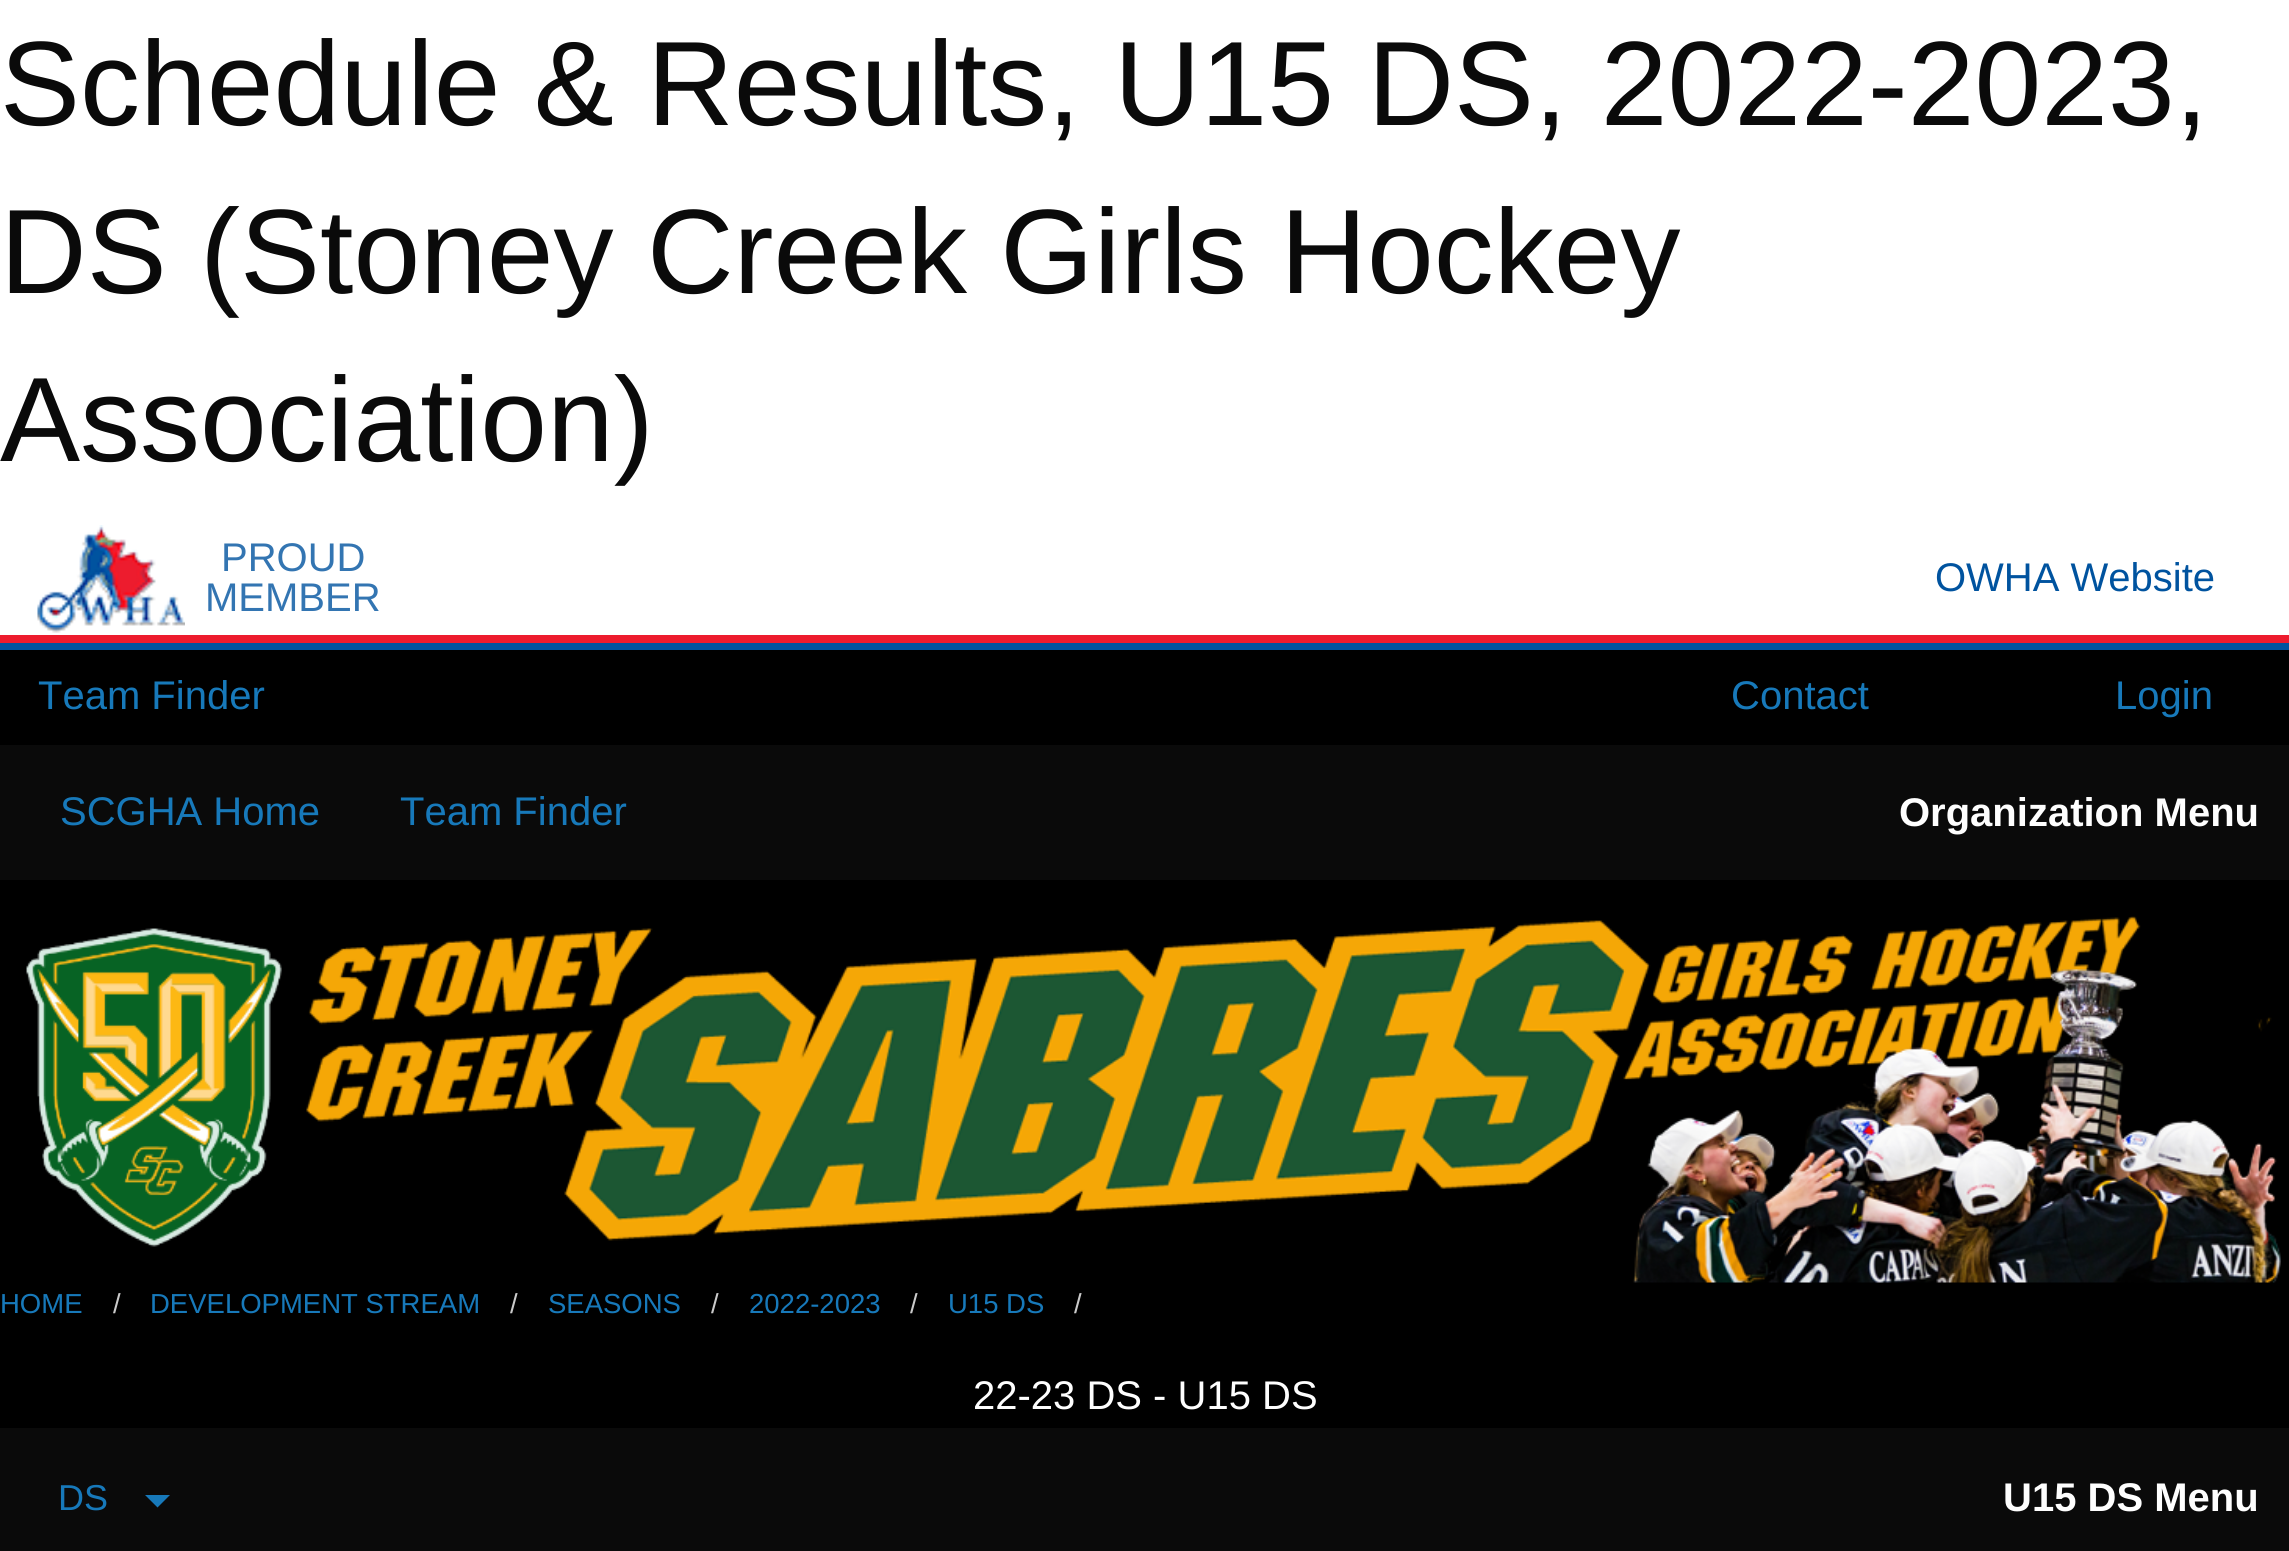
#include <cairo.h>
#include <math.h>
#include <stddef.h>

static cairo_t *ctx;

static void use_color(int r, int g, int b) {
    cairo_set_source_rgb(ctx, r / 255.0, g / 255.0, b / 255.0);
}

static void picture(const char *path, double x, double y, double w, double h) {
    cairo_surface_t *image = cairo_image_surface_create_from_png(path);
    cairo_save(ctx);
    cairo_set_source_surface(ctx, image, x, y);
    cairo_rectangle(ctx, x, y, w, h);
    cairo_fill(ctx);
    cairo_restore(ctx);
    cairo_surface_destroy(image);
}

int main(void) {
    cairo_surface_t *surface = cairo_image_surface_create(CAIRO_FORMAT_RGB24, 2289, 1551);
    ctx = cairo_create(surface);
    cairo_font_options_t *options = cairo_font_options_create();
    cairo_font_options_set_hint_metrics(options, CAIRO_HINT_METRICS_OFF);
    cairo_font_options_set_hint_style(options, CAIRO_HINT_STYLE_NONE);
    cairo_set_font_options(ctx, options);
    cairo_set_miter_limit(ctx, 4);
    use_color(255, 255, 255);
    cairo_paint(ctx);
    cairo_select_font_face(ctx, "Liberation Sans", CAIRO_FONT_SLANT_NORMAL, CAIRO_FONT_WEIGHT_NORMAL);
    cairo_set_font_size(ctx, 120);
    use_color(10, 10, 10);
    cairo_move_to(ctx, 0, 125);
    cairo_show_text(ctx, "Schedule & Results, U15 DS, 2022-2023,");
    cairo_move_to(ctx, 0, 293);
    cairo_show_text(ctx, "DS (Stoney Creek Girls Hockey");
    cairo_move_to(ctx, 0, 461);
    cairo_show_text(ctx, "Association)");
    picture("img1.png", 37, 525, 148, 108);
    cairo_set_font_size(ctx, 40);
    use_color(51, 117, 178);
    cairo_move_to(ctx, 221, 571);
    cairo_show_text(ctx, "PROUD");
    cairo_move_to(ctx, 205, 611);
    cairo_show_text(ctx, "MEMBER");
    use_color(0, 83, 159);
    cairo_move_to(ctx, 1935, 591);
    cairo_show_text(ctx, "OWHA Website");
    use_color(237, 27, 45);
    cairo_rectangle(ctx, 0, 635, 2289, 8);
    cairo_fill(ctx);
    use_color(0, 83, 159);
    cairo_rectangle(ctx, 0, 643, 2289, 7);
    cairo_fill(ctx);
    use_color(0, 0, 0);
    cairo_rectangle(ctx, 0, 650, 2289, 778);
    cairo_fill(ctx);
    use_color(23, 121, 186);
    cairo_move_to(ctx, 38, 709);
    cairo_show_text(ctx, "Team Finder");
    cairo_move_to(ctx, 1731, 709);
    cairo_show_text(ctx, "Contact");
    cairo_move_to(ctx, 2115, 709);
    cairo_show_text(ctx, "Login");
    use_color(10, 10, 10);
    cairo_rectangle(ctx, 0, 745, 2289, 135);
    cairo_fill(ctx);
    use_color(23, 121, 186);
    cairo_move_to(ctx, 60, 825);
    cairo_show_text(ctx, "SCGHA Home");
    cairo_move_to(ctx, 400, 825);
    cairo_show_text(ctx, "Team Finder");
    cairo_select_font_face(ctx, "Liberation Sans", CAIRO_FONT_SLANT_NORMAL, CAIRO_FONT_WEIGHT_BOLD);
    use_color(254, 254, 254);
    cairo_move_to(ctx, 1899, 826);
    cairo_show_text(ctx, "Organization Menu");
    picture("img2.png", 26, 916, 2255, 367);
    cairo_select_font_face(ctx, "Liberation Sans", CAIRO_FONT_SLANT_NORMAL, CAIRO_FONT_WEIGHT_NORMAL);
    cairo_set_font_size(ctx, 27.5);
    use_color(23, 121, 186);
    cairo_move_to(ctx, 0, 1313);
    cairo_show_text(ctx, "HOME");
    use_color(202, 202, 202);
    cairo_move_to(ctx, 113, 1313);
    cairo_show_text(ctx, "/");
    use_color(23, 121, 186);
    cairo_move_to(ctx, 150, 1313);
    cairo_show_text(ctx, "DEVELOPMENT STREAM");
    use_color(202, 202, 202);
    cairo_move_to(ctx, 510, 1313);
    cairo_show_text(ctx, "/");
    use_color(23, 121, 186);
    cairo_move_to(ctx, 548, 1313);
    cairo_show_text(ctx, "SEASONS");
    use_color(202, 202, 202);
    cairo_move_to(ctx, 711, 1313);
    cairo_show_text(ctx, "/");
    use_color(23, 121, 186);
    cairo_move_to(ctx, 749, 1313);
    cairo_show_text(ctx, "2022-2023");
    use_color(202, 202, 202);
    cairo_move_to(ctx, 910, 1313);
    cairo_show_text(ctx, "/");
    use_color(23, 121, 186);
    cairo_move_to(ctx, 948, 1313);
    cairo_show_text(ctx, "U15 DS");
    use_color(202, 202, 202);
    cairo_move_to(ctx, 1074, 1313);
    cairo_show_text(ctx, "/");
    cairo_set_font_size(ctx, 40);
    use_color(254, 254, 254);
    cairo_move_to(ctx, 973, 1409);
    cairo_show_text(ctx, "22-23 DS - U15 DS");
    use_color(10, 10, 10);
    cairo_rectangle(ctx, 0, 1428, 2289, 123);
    cairo_fill(ctx);
    cairo_set_font_size(ctx, 36);
    use_color(23, 121, 186);
    cairo_move_to(ctx, 58, 1510);
    cairo_show_text(ctx, "DS");
    cairo_new_path(ctx);
    cairo_move_to(ctx, 145, 1495);
    cairo_line_to(ctx, 170, 1495);
    cairo_line_to(ctx, 157.5, 1507.5);
    cairo_close_path(ctx);
    cairo_fill(ctx);
    cairo_select_font_face(ctx, "Liberation Sans", CAIRO_FONT_SLANT_NORMAL, CAIRO_FONT_WEIGHT_BOLD);
    cairo_set_font_size(ctx, 40);
    use_color(254, 254, 254);
    cairo_move_to(ctx, 2003, 1511);
    cairo_show_text(ctx, "U15 DS Menu");
    cairo_surface_write_to_png(surface, "result.png");
    cairo_font_options_destroy(options);
    cairo_destroy(ctx);
    cairo_surface_destroy(surface);
    return 0;
}
